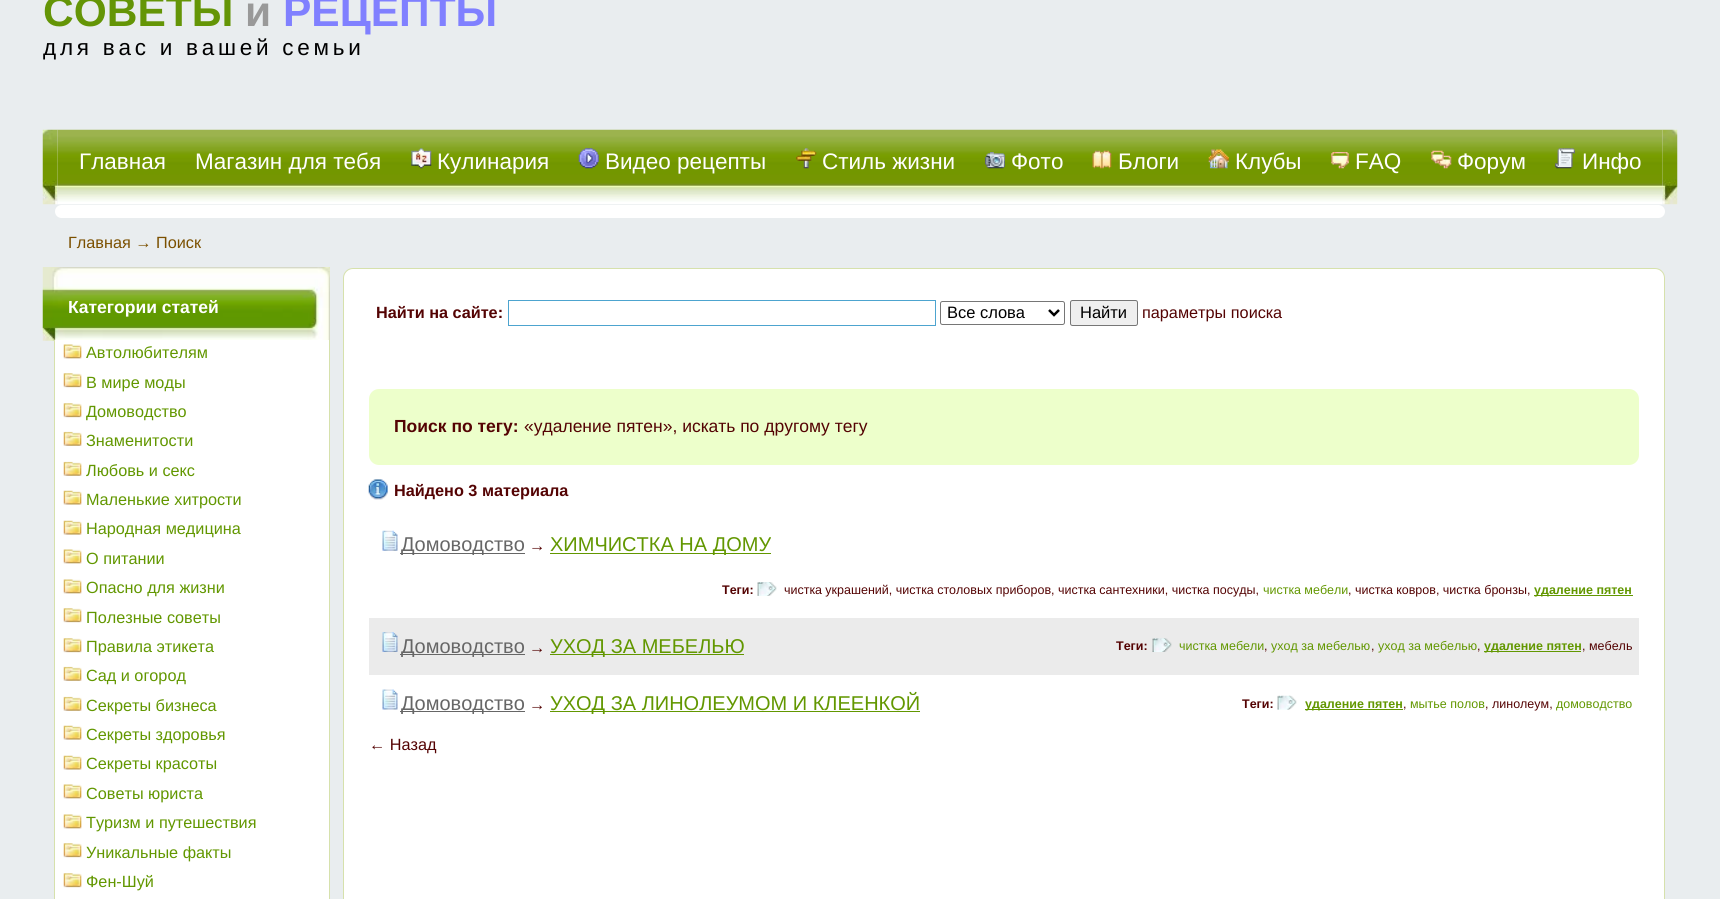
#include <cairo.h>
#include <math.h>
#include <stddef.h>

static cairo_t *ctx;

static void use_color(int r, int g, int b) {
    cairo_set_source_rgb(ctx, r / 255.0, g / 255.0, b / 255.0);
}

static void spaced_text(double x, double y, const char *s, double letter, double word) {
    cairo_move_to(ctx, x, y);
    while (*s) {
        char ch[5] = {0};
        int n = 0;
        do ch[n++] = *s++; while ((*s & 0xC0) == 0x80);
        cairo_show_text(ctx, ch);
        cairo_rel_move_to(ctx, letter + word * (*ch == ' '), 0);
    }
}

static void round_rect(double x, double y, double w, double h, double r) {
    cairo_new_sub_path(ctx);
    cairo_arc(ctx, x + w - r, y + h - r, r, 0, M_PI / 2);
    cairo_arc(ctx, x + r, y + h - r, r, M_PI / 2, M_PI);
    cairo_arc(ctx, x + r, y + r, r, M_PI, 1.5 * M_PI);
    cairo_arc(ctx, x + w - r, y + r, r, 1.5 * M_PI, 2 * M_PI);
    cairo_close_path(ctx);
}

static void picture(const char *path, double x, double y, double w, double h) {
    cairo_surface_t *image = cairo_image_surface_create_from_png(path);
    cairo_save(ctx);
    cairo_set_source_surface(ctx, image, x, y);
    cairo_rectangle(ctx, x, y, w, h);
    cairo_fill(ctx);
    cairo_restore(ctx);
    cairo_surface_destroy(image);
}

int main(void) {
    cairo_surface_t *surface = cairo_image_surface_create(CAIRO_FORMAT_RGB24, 1720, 899);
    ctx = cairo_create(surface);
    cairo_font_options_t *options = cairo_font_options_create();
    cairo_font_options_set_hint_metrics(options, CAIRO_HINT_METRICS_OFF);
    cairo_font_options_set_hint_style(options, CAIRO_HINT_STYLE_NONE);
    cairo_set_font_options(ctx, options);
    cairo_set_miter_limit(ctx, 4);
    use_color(233, 237, 239);
    cairo_paint(ctx);
    cairo_select_font_face(ctx, "Liberation Sans", CAIRO_FONT_SLANT_NORMAL, CAIRO_FONT_WEIGHT_BOLD);
    cairo_set_font_size(ctx, 42.5);
    use_color(100, 149, 6);
    cairo_move_to(ctx, 43, 26);
    cairo_show_text(ctx, "СОВЕТЫ");
    use_color(153, 153, 153);
    cairo_move_to(ctx, 245, 26);
    cairo_show_text(ctx, "и");
    use_color(128, 128, 255);
    cairo_move_to(ctx, 283, 26);
    cairo_show_text(ctx, "РЕЦЕПТЫ");
    cairo_select_font_face(ctx, "Liberation Sans", CAIRO_FONT_SLANT_NORMAL, CAIRO_FONT_WEIGHT_NORMAL);
    cairo_set_font_size(ctx, 22.5);
    use_color(0, 0, 0);
    spaced_text(43, 55, "для вас и вашей семьи", 3.75, 0);
    picture("img1.png", 42, 129, 16, 76);
    picture("img2.png", 57, 129, 1606, 76);
    use_color(255, 255, 255);
    cairo_move_to(ctx, 79, 169);
    cairo_show_text(ctx, "Главная");
    cairo_move_to(ctx, 195, 169);
    cairo_show_text(ctx, "Магазин для тебя");
    picture("img3.png", 411, 148, 21, 21);
    cairo_move_to(ctx, 437, 169);
    cairo_show_text(ctx, "Кулинария");
    picture("img4.png", 578, 148, 21, 21);
    cairo_move_to(ctx, 605, 169);
    cairo_show_text(ctx, "Видео рецепты");
    picture("img5.png", 796, 148, 21, 21);
    cairo_move_to(ctx, 822, 169);
    cairo_show_text(ctx, "Стиль жизни");
    picture("img6.png", 985, 152, 20, 17);
    cairo_move_to(ctx, 1011, 169);
    cairo_show_text(ctx, "Фото");
    picture("img7.png", 1092, 150, 20, 19);
    cairo_move_to(ctx, 1118, 169);
    cairo_show_text(ctx, "Блоги");
    picture("img8.png", 1208, 149, 21, 20);
    cairo_move_to(ctx, 1235, 169);
    cairo_show_text(ctx, "Клубы");
    picture("img9.png", 1331, 152, 18, 17);
    cairo_move_to(ctx, 1355, 169);
    cairo_show_text(ctx, "FAQ");
    picture("img10.png", 1431, 150, 21, 19);
    cairo_move_to(ctx, 1457, 169);
    cairo_show_text(ctx, "Форум");
    picture("img11.png", 1555, 148, 20, 21);
    cairo_move_to(ctx, 1582, 169);
    cairo_show_text(ctx, "Инфо");
    picture("img12.png", 1662, 129, 16, 76);
    round_rect(55, 205, 1610, 13, 6.5);
    cairo_fill(ctx);
    cairo_set_font_size(ctx, 16.25);
    use_color(123, 80, 0);
    cairo_move_to(ctx, 68, 248);
    cairo_show_text(ctx, "Главная → Поиск");
    picture("img13.png", 42, 267, 288, 74);
    cairo_select_font_face(ctx, "Liberation Sans", CAIRO_FONT_SLANT_NORMAL, CAIRO_FONT_WEIGHT_BOLD);
    cairo_set_font_size(ctx, 17.5);
    use_color(255, 255, 255);
    cairo_move_to(ctx, 68, 313);
    cairo_show_text(ctx, "Категории статей");
    cairo_rectangle(ctx, 55, 340, 274, 559);
    cairo_fill(ctx);
    use_color(214, 225, 172);
    cairo_set_fill_rule(ctx, CAIRO_FILL_RULE_EVEN_ODD);
    cairo_new_path(ctx);
    cairo_move_to(ctx, 54, 340);
    cairo_line_to(ctx, 330, 340);
    cairo_line_to(ctx, 330, 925);
    cairo_curve_to(ctx, 330, 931, 326, 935, 320, 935);
    cairo_line_to(ctx, 64, 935);
    cairo_curve_to(ctx, 58, 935, 54, 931, 54, 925);
    cairo_close_path(ctx);
    cairo_move_to(ctx, 55, 340);
    cairo_line_to(ctx, 329, 340);
    cairo_line_to(ctx, 329, 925);
    cairo_curve_to(ctx, 329, 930, 325, 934, 320, 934);
    cairo_line_to(ctx, 64, 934);
    cairo_curve_to(ctx, 59, 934, 55, 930, 55, 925);
    cairo_close_path(ctx);
    cairo_fill(ctx);
    picture("img14.png", 63, 344, 19, 15);
    cairo_select_font_face(ctx, "Liberation Sans", CAIRO_FONT_SLANT_NORMAL, CAIRO_FONT_WEIGHT_NORMAL);
    cairo_set_font_size(ctx, 16.25);
    use_color(98, 151, 0);
    cairo_move_to(ctx, 86, 358);
    cairo_show_text(ctx, "Автолюбителям");
    picture("img15.png", 63, 373, 19, 15);
    cairo_move_to(ctx, 86, 388);
    cairo_show_text(ctx, "В мире моды");
    picture("img15.png", 63, 403, 19, 15);
    cairo_move_to(ctx, 86, 417);
    cairo_show_text(ctx, "Домоводство");
    picture("img16.png", 63, 431, 19, 15);
    cairo_move_to(ctx, 86, 446);
    cairo_show_text(ctx, "Знаменитости");
    picture("img16.png", 63, 461, 19, 15);
    cairo_move_to(ctx, 86, 476);
    cairo_show_text(ctx, "Любовь и секс");
    picture("img17.png", 63, 490, 19, 15);
    cairo_move_to(ctx, 86, 505);
    cairo_show_text(ctx, "Маленькие хитрости");
    picture("img18.png", 63, 520, 19, 15);
    cairo_move_to(ctx, 86, 534);
    cairo_show_text(ctx, "Народная медицина");
    picture("img14.png", 63, 549, 19, 15);
    cairo_move_to(ctx, 86, 564);
    cairo_show_text(ctx, "О питании");
    picture("img14.png", 63, 579, 19, 15);
    cairo_move_to(ctx, 86, 593);
    cairo_show_text(ctx, "Опасно для жизни");
    picture("img15.png", 63, 608, 19, 15);
    cairo_move_to(ctx, 86, 623);
    cairo_show_text(ctx, "Полезные советы");
    picture("img15.png", 63, 638, 19, 15);
    cairo_move_to(ctx, 86, 652);
    cairo_show_text(ctx, "Правила этикета");
    picture("img16.png", 63, 666, 19, 15);
    cairo_move_to(ctx, 86, 681);
    cairo_show_text(ctx, "Сад и огород");
    picture("img16.png", 63, 696, 19, 15);
    cairo_move_to(ctx, 86, 711);
    cairo_show_text(ctx, "Секреты бизнеса");
    picture("img19.png", 63, 725, 19, 15);
    cairo_move_to(ctx, 86, 740);
    cairo_show_text(ctx, "Секреты здоровья");
    picture("img17.png", 63, 755, 19, 15);
    cairo_move_to(ctx, 86, 769);
    cairo_show_text(ctx, "Секреты красоты");
    picture("img14.png", 63, 784, 19, 15);
    cairo_move_to(ctx, 86, 799);
    cairo_show_text(ctx, "Советы юриста");
    picture("img14.png", 63, 814, 19, 15);
    cairo_move_to(ctx, 86, 828);
    cairo_show_text(ctx, "Туризм и путешествия");
    picture("img15.png", 63, 843, 19, 15);
    cairo_move_to(ctx, 86, 858);
    cairo_show_text(ctx, "Уникальные факты");
    picture("img15.png", 63, 873, 19, 15);
    cairo_move_to(ctx, 86, 887);
    cairo_show_text(ctx, "Фен-Шуй");
    use_color(255, 255, 255);
    round_rect(343.5, 268.5, 1321, 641, 9.5);
    cairo_fill_preserve(ctx);
    use_color(214, 225, 172);
    cairo_set_line_width(ctx, 1);
    cairo_stroke(ctx);
    cairo_select_font_face(ctx, "Liberation Sans", CAIRO_FONT_SLANT_NORMAL, CAIRO_FONT_WEIGHT_BOLD);
    use_color(84, 3, 3);
    cairo_move_to(ctx, 376, 318);
    cairo_show_text(ctx, "Найти на сайте:");
    cairo_rectangle(ctx, 508.5, 300.5, 427, 25);
    use_color(77, 164, 207);
    cairo_stroke(ctx);
    round_rect(940.5, 301.5, 124, 23, 2);
    use_color(118, 118, 118);
    cairo_stroke(ctx);
    cairo_new_path(ctx);
    cairo_move_to(ctx, 1049, 310);
    cairo_line_to(ctx, 1054, 315);
    cairo_line_to(ctx, 1059, 310);
    use_color(0, 0, 0);
    cairo_set_line_width(ctx, 2.5);
    cairo_stroke(ctx);
    cairo_select_font_face(ctx, "Liberation Sans", CAIRO_FONT_SLANT_NORMAL, CAIRO_FONT_WEIGHT_NORMAL);
    cairo_set_font_size(ctx, 16.5);
    cairo_move_to(ctx, 947, 318);
    cairo_show_text(ctx, "Все слова");
    use_color(239, 239, 239);
    round_rect(1070.5, 300.5, 67, 25, 2);
    cairo_fill_preserve(ctx);
    use_color(118, 118, 118);
    cairo_set_line_width(ctx, 1);
    cairo_stroke(ctx);
    use_color(0, 0, 0);
    cairo_move_to(ctx, 1080, 318);
    cairo_show_text(ctx, "Найти");
    cairo_set_font_size(ctx, 16.25);
    use_color(84, 3, 3);
    cairo_move_to(ctx, 1142, 318);
    cairo_show_text(ctx, "параметры поиска");
    use_color(237, 255, 203);
    round_rect(369, 389, 1270, 76, 10);
    cairo_fill(ctx);
    cairo_select_font_face(ctx, "Liberation Sans", CAIRO_FONT_SLANT_NORMAL, CAIRO_FONT_WEIGHT_BOLD);
    cairo_set_font_size(ctx, 17.5);
    use_color(84, 3, 3);
    cairo_move_to(ctx, 394, 432);
    cairo_show_text(ctx, "Поиск по тегу:");
    cairo_select_font_face(ctx, "Liberation Sans", CAIRO_FONT_SLANT_NORMAL, CAIRO_FONT_WEIGHT_NORMAL);
    cairo_move_to(ctx, 524, 432);
    cairo_show_text(ctx, "«удаление пятен», искать по другому тегу");
    picture("img20.png", 368, 479, 20, 21);
    cairo_select_font_face(ctx, "Liberation Sans", CAIRO_FONT_SLANT_NORMAL, CAIRO_FONT_WEIGHT_BOLD);
    cairo_set_font_size(ctx, 16.25);
    cairo_move_to(ctx, 394, 496);
    cairo_show_text(ctx, "Найдено 3 материала");
    picture("img21.png", 382, 530, 16, 21);
    use_color(102, 102, 102);
    cairo_rectangle(ctx, 400, 553, 125, 1);
    cairo_fill(ctx);
    cairo_select_font_face(ctx, "Liberation Sans", CAIRO_FONT_SLANT_NORMAL, CAIRO_FONT_WEIGHT_NORMAL);
    cairo_set_font_size(ctx, 20);
    cairo_move_to(ctx, 401, 551);
    cairo_show_text(ctx, "Домоводство");
    cairo_set_font_size(ctx, 16.25);
    use_color(84, 3, 3);
    cairo_move_to(ctx, 529, 551);
    cairo_show_text(ctx, "→");
    use_color(98, 151, 0);
    cairo_rectangle(ctx, 550, 553, 221, 1);
    cairo_fill(ctx);
    cairo_set_font_size(ctx, 20);
    cairo_move_to(ctx, 550, 551);
    cairo_show_text(ctx, "ХИМЧИСТКА НА ДОМУ");
    cairo_select_font_face(ctx, "Liberation Sans", CAIRO_FONT_SLANT_NORMAL, CAIRO_FONT_WEIGHT_BOLD);
    cairo_set_font_size(ctx, 12.5);
    use_color(84, 3, 3);
    cairo_move_to(ctx, 722, 594);
    cairo_show_text(ctx, "Теги:");
    picture("img22.png", 757, 582, 20, 14);
    cairo_select_font_face(ctx, "Liberation Sans", CAIRO_FONT_SLANT_NORMAL, CAIRO_FONT_WEIGHT_NORMAL);
    cairo_move_to(ctx, 784, 594);
    cairo_show_text(ctx, "чистка украшений, чистка столовых приборов, чистка сантехники, чистка посуды,");
    use_color(98, 151, 0);
    cairo_move_to(ctx, 1263, 594);
    cairo_show_text(ctx, "чистка мебели");
    use_color(84, 3, 3);
    cairo_move_to(ctx, 1348, 594);
    cairo_show_text(ctx, ", чистка ковров, чистка бронзы,");
    use_color(98, 151, 0);
    cairo_rectangle(ctx, 1534, 595, 99, 1);
    cairo_fill(ctx);
    cairo_select_font_face(ctx, "Liberation Sans", CAIRO_FONT_SLANT_NORMAL, CAIRO_FONT_WEIGHT_BOLD);
    cairo_move_to(ctx, 1534, 594);
    cairo_show_text(ctx, "удаление пятен");
    use_color(235, 235, 235);
    cairo_rectangle(ctx, 369, 618, 1270, 57);
    cairo_fill(ctx);
    picture("img23.png", 382, 632, 16, 20);
    use_color(102, 102, 102);
    cairo_rectangle(ctx, 400, 654, 125, 1);
    cairo_fill(ctx);
    cairo_select_font_face(ctx, "Liberation Sans", CAIRO_FONT_SLANT_NORMAL, CAIRO_FONT_WEIGHT_NORMAL);
    cairo_set_font_size(ctx, 20);
    cairo_move_to(ctx, 401, 653);
    cairo_show_text(ctx, "Домоводство");
    cairo_set_font_size(ctx, 16.25);
    use_color(84, 3, 3);
    cairo_move_to(ctx, 529, 653);
    cairo_show_text(ctx, "→");
    use_color(98, 151, 0);
    cairo_rectangle(ctx, 550, 654, 194, 1);
    cairo_fill(ctx);
    cairo_set_font_size(ctx, 20);
    cairo_move_to(ctx, 550, 653);
    cairo_show_text(ctx, "УХОД ЗА МЕБЕЛЬЮ");
    cairo_select_font_face(ctx, "Liberation Sans", CAIRO_FONT_SLANT_NORMAL, CAIRO_FONT_WEIGHT_BOLD);
    cairo_set_font_size(ctx, 12.5);
    use_color(84, 3, 3);
    cairo_move_to(ctx, 1116, 650);
    cairo_show_text(ctx, "Теги:");
    picture("img24.png", 1152, 638, 20, 14);
    cairo_select_font_face(ctx, "Liberation Sans", CAIRO_FONT_SLANT_NORMAL, CAIRO_FONT_WEIGHT_NORMAL);
    use_color(98, 151, 0);
    cairo_move_to(ctx, 1179, 650);
    cairo_show_text(ctx, "чистка мебели");
    use_color(84, 3, 3);
    cairo_move_to(ctx, 1264, 650);
    cairo_show_text(ctx, ",");
    use_color(98, 151, 0);
    cairo_move_to(ctx, 1271, 650);
    cairo_show_text(ctx, "уход за мебелью");
    use_color(84, 3, 3);
    cairo_move_to(ctx, 1371, 650);
    cairo_show_text(ctx, ",");
    use_color(98, 151, 0);
    cairo_move_to(ctx, 1378, 650);
    cairo_show_text(ctx, "уход за мебелью");
    use_color(84, 3, 3);
    cairo_move_to(ctx, 1477, 650);
    cairo_show_text(ctx, ",");
    use_color(98, 151, 0);
    cairo_rectangle(ctx, 1484, 651, 97, 1);
    cairo_fill(ctx);
    cairo_select_font_face(ctx, "Liberation Sans", CAIRO_FONT_SLANT_NORMAL, CAIRO_FONT_WEIGHT_BOLD);
    cairo_move_to(ctx, 1484, 650);
    cairo_show_text(ctx, "удаление пятен");
    cairo_select_font_face(ctx, "Liberation Sans", CAIRO_FONT_SLANT_NORMAL, CAIRO_FONT_WEIGHT_NORMAL);
    use_color(84, 3, 3);
    cairo_move_to(ctx, 1582, 650);
    cairo_show_text(ctx, ", мебель");
    picture("img25.png", 382, 689, 16, 21);
    use_color(102, 102, 102);
    cairo_rectangle(ctx, 400, 711, 125, 1);
    cairo_fill(ctx);
    cairo_set_font_size(ctx, 20);
    cairo_move_to(ctx, 401, 710);
    cairo_show_text(ctx, "Домоводство");
    cairo_set_font_size(ctx, 16.25);
    use_color(84, 3, 3);
    cairo_move_to(ctx, 529, 710);
    cairo_show_text(ctx, "→");
    use_color(98, 151, 0);
    cairo_rectangle(ctx, 550, 711, 370, 1);
    cairo_fill(ctx);
    cairo_set_font_size(ctx, 20);
    cairo_move_to(ctx, 550, 710);
    cairo_show_text(ctx, "УХОД ЗА ЛИНОЛЕУМОМ И КЛЕЕНКОЙ");
    cairo_select_font_face(ctx, "Liberation Sans", CAIRO_FONT_SLANT_NORMAL, CAIRO_FONT_WEIGHT_BOLD);
    cairo_set_font_size(ctx, 12.5);
    use_color(84, 3, 3);
    cairo_move_to(ctx, 1242, 708);
    cairo_show_text(ctx, "Теги:");
    picture("img26.png", 1277, 695, 20, 15);
    use_color(98, 151, 0);
    cairo_rectangle(ctx, 1305, 709, 98, 1);
    cairo_fill(ctx);
    cairo_move_to(ctx, 1305, 708);
    cairo_show_text(ctx, "удаление пятен");
    cairo_select_font_face(ctx, "Liberation Sans", CAIRO_FONT_SLANT_NORMAL, CAIRO_FONT_WEIGHT_NORMAL);
    use_color(84, 3, 3);
    cairo_move_to(ctx, 1403, 708);
    cairo_show_text(ctx, ",");
    use_color(98, 151, 0);
    cairo_move_to(ctx, 1410, 708);
    cairo_show_text(ctx, "мытье полов");
    use_color(84, 3, 3);
    cairo_move_to(ctx, 1485, 708);
    cairo_show_text(ctx, ", линолеум,");
    use_color(98, 151, 0);
    cairo_move_to(ctx, 1556, 708);
    cairo_show_text(ctx, "домоводство");
    cairo_set_font_size(ctx, 16.25);
    use_color(84, 3, 3);
    cairo_move_to(ctx, 369, 750);
    cairo_show_text(ctx, "← Назад");
    cairo_surface_write_to_png(surface, "result.png");
    cairo_font_options_destroy(options);
    cairo_destroy(ctx);
    cairo_surface_destroy(surface);
    return 0;
}
